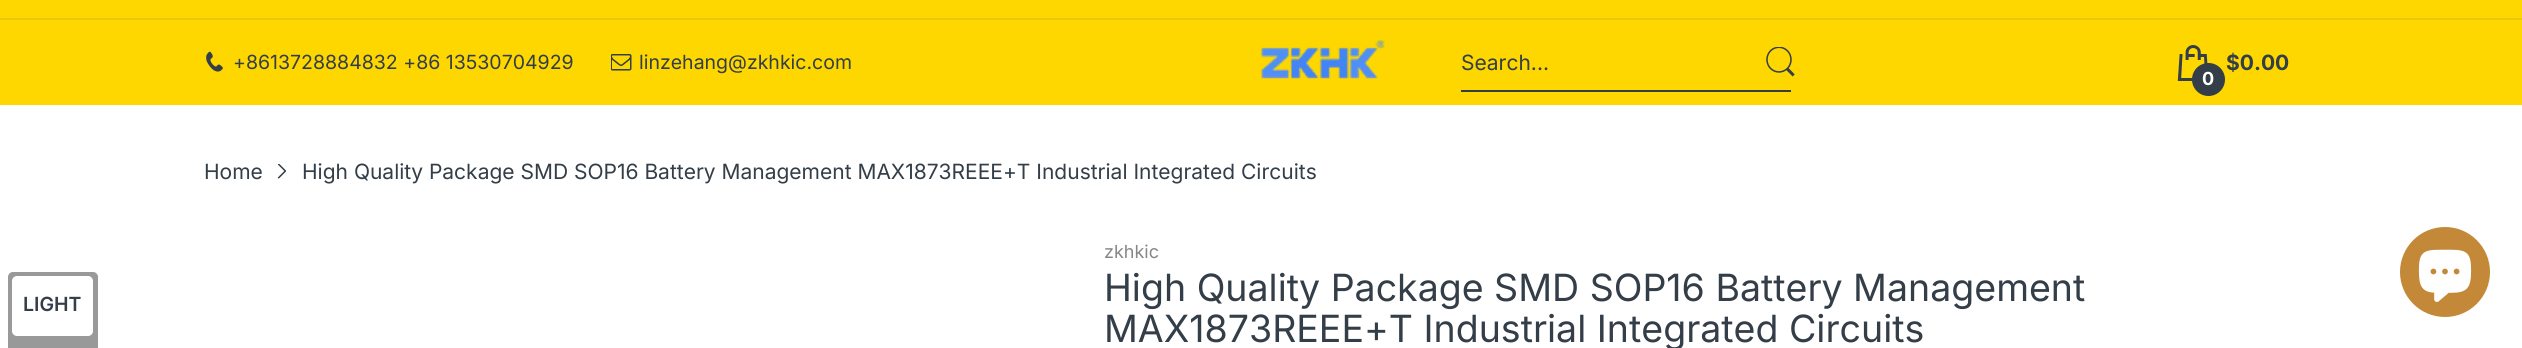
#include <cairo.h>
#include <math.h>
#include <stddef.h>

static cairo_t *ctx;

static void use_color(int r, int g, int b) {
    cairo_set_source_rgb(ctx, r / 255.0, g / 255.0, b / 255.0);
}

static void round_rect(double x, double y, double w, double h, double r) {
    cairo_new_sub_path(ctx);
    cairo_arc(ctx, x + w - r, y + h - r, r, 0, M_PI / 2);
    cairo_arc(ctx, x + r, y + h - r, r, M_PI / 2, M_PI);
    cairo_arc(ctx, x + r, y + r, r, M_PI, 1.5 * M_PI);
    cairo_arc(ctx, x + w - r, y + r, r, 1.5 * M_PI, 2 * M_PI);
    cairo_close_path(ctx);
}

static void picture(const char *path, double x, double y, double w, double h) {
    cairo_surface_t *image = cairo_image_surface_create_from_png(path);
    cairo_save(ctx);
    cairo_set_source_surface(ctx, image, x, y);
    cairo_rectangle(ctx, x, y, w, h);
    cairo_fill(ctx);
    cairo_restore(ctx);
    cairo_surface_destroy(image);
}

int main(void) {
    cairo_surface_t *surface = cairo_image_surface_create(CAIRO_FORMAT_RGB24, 2522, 348);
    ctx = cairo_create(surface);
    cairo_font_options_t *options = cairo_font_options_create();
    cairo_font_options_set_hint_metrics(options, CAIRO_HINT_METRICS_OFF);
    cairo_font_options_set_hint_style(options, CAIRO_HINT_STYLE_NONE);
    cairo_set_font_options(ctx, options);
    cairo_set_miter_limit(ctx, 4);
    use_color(255, 255, 255);
    cairo_paint(ctx);
    use_color(153, 153, 153);
    round_rect(8, 272, 90, 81, 5);
    cairo_fill(ctx);
    use_color(255, 255, 255);
    round_rect(12, 276, 81, 60, 5);
    cairo_fill(ctx);
    cairo_select_font_face(ctx, "Inter SemiBold", CAIRO_FONT_SLANT_NORMAL, CAIRO_FONT_WEIGHT_NORMAL);
    cairo_set_font_size(ctx, 19.5);
    use_color(51, 62, 72);
    cairo_move_to(ctx, 23, 311);
    cairo_show_text(ctx, "LIGHT");
    use_color(254, 215, 0);
    cairo_rectangle(ctx, 0, 0, 2522, 18);
    cairo_fill(ctx);
    use_color(234, 200, 7);
    cairo_rectangle(ctx, 0, 18, 2522, 2);
    cairo_fill(ctx);
    use_color(254, 215, 0);
    cairo_rectangle(ctx, 0, 20, 2522, 85);
    cairo_fill(ctx);
    picture("img1.png", 206, 51, 17, 21);
    cairo_select_font_face(ctx, "Inter", CAIRO_FONT_SLANT_NORMAL, CAIRO_FONT_WEIGHT_NORMAL);
    use_color(51, 62, 72);
    cairo_move_to(ctx, 233, 69);
    cairo_show_text(ctx, "+8613728884832 +86 13530704929");
    picture("img2.png", 611, 54, 21, 17);
    cairo_move_to(ctx, 639, 69);
    cairo_show_text(ctx, "linzehang@zkhkic.com");
    picture("img3.png", 1261, 40, 124, 39);
    cairo_rectangle(ctx, 1461, 90, 330, 2);
    cairo_fill(ctx);
    cairo_set_font_size(ctx, 21);
    cairo_move_to(ctx, 1461, 70);
    cairo_show_text(ctx, "Search...");
    picture("img4.png", 1766, 47, 29, 30);
    cairo_select_font_face(ctx, "Inter", CAIRO_FONT_SLANT_NORMAL, CAIRO_FONT_WEIGHT_BOLD);
    cairo_move_to(ctx, 2226, 70);
    cairo_show_text(ctx, "$0.00");
    picture("img5.png", 2177, 45, 31, 36);
    cairo_arc(ctx, 2208.5, 79.5, 16.5, 0, 2 * M_PI);
    cairo_fill(ctx);
    cairo_set_font_size(ctx, 18);
    use_color(255, 255, 255);
    cairo_move_to(ctx, 2202, 85);
    cairo_show_text(ctx, "0");
    cairo_select_font_face(ctx, "Inter", CAIRO_FONT_SLANT_NORMAL, CAIRO_FONT_WEIGHT_NORMAL);
    cairo_set_font_size(ctx, 21);
    use_color(51, 62, 72);
    cairo_move_to(ctx, 204, 179);
    cairo_show_text(ctx, "Home");
    picture("img6.png", 277, 164, 9, 15);
    cairo_move_to(ctx, 302, 179);
    cairo_show_text(ctx, "High Quality Package SMD SOP16 Battery Management MAX1873REEE+T Industrial Integrated Circuits");
    cairo_set_font_size(ctx, 18);
    use_color(135, 135, 135);
    cairo_move_to(ctx, 1104, 258);
    cairo_show_text(ctx, "zkhkic");
    cairo_set_font_size(ctx, 37.5);
    use_color(51, 62, 72);
    cairo_move_to(ctx, 1104, 301);
    cairo_show_text(ctx, "High Quality Package SMD SOP16 Battery Management");
    cairo_move_to(ctx, 1104, 342);
    cairo_show_text(ctx, "MAX1873REEE+T Industrial Integrated Circuits");
    use_color(196, 137, 56);
    cairo_new_path(ctx);
    cairo_arc(ctx, 2445, 272, 45, 0, 2 * M_PI);
    cairo_fill(ctx);
    picture("img7.png", 2418, 249, 54, 53);
    cairo_surface_write_to_png(surface, "result.png");
    cairo_font_options_destroy(options);
    cairo_destroy(ctx);
    cairo_surface_destroy(surface);
    return 0;
}
